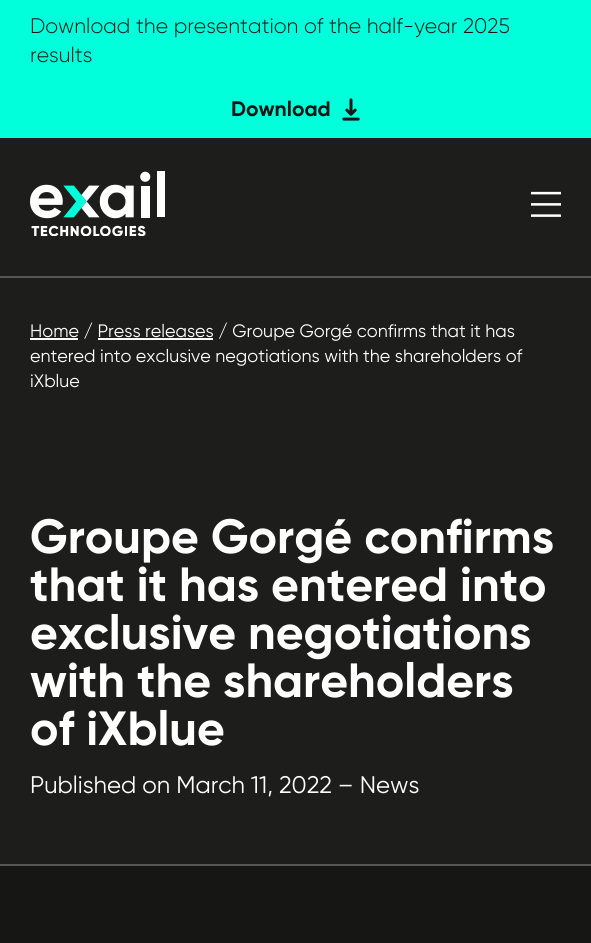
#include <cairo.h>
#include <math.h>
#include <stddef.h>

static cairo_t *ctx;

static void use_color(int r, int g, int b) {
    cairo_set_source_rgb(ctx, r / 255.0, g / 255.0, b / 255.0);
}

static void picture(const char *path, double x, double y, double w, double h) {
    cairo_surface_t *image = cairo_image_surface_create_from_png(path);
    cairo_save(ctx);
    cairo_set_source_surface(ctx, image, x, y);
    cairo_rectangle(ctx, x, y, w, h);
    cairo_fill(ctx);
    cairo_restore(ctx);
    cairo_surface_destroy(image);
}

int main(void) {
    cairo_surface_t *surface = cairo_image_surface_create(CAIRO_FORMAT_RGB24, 591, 943);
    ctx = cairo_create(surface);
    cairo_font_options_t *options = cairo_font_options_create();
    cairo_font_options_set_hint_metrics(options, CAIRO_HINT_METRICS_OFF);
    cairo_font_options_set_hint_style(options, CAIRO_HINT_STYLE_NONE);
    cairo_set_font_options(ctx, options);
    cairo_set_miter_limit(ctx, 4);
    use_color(22, 22, 21);
    cairo_paint(ctx);
    use_color(0, 255, 218);
    cairo_rectangle(ctx, 0, 0, 591, 138);
    cairo_fill(ctx);
    cairo_select_font_face(ctx, "Gilroy Light", CAIRO_FONT_SLANT_NORMAL, CAIRO_FONT_WEIGHT_NORMAL);
    cairo_set_font_size(ctx, 21);
    use_color(22, 22, 21);
    cairo_move_to(ctx, 30, 33);
    cairo_show_text(ctx, "Download the presentation of the half-year 2025");
    cairo_move_to(ctx, 30, 62);
    cairo_show_text(ctx, "results");
    cairo_select_font_face(ctx, "Gilroy", CAIRO_FONT_SLANT_NORMAL, CAIRO_FONT_WEIGHT_BOLD);
    cairo_move_to(ctx, 231, 116);
    cairo_show_text(ctx, "Download");
    picture("img1.png", 342, 98, 18, 23);
    use_color(29, 29, 27);
    cairo_rectangle(ctx, 0, 138, 591, 138);
    cairo_fill(ctx);
    use_color(86, 86, 85);
    cairo_rectangle(ctx, 0, 276, 591, 2);
    cairo_fill(ctx);
    picture("img2.png", 30, 171, 135, 65);
    picture("img3.png", 531, 191, 30, 26);
    use_color(29, 29, 27);
    cairo_rectangle(ctx, 0, 278, 591, 586);
    cairo_fill(ctx);
    use_color(86, 86, 85);
    cairo_rectangle(ctx, 0, 864, 591, 2);
    cairo_fill(ctx);
    use_color(255, 255, 255);
    cairo_rectangle(ctx, 30, 338, 48, 2);
    cairo_fill(ctx);
    cairo_select_font_face(ctx, "Gilroy", CAIRO_FONT_SLANT_NORMAL, CAIRO_FONT_WEIGHT_NORMAL);
    cairo_set_font_size(ctx, 18);
    cairo_move_to(ctx, 30, 337);
    cairo_show_text(ctx, "Home / Press releases / Groupe Gorgé confirms that it has");
    cairo_rectangle(ctx, 98, 338, 115, 2);
    cairo_fill(ctx);
    cairo_move_to(ctx, 30, 362);
    cairo_show_text(ctx, "entered into exclusive negotiations with the shareholders of");
    cairo_move_to(ctx, 30, 387);
    cairo_show_text(ctx, "iXblue");
    cairo_select_font_face(ctx, "Gilroy", CAIRO_FONT_SLANT_NORMAL, CAIRO_FONT_WEIGHT_BOLD);
    cairo_set_font_size(ctx, 48);
    cairo_move_to(ctx, 30, 553);
    cairo_show_text(ctx, "Groupe Gorgé confirms");
    cairo_move_to(ctx, 30, 601);
    cairo_show_text(ctx, "that it has entered into");
    cairo_move_to(ctx, 30, 649);
    cairo_show_text(ctx, "exclusive negotiations");
    cairo_move_to(ctx, 30, 697);
    cairo_show_text(ctx, "with the shareholders");
    cairo_move_to(ctx, 30, 745);
    cairo_show_text(ctx, "of iXblue");
    cairo_select_font_face(ctx, "Gilroy", CAIRO_FONT_SLANT_NORMAL, CAIRO_FONT_WEIGHT_NORMAL);
    cairo_set_font_size(ctx, 24);
    cairo_move_to(ctx, 30, 793);
    cairo_show_text(ctx, "Published on March 11, 2022 – News");
    cairo_surface_write_to_png(surface, "result.png");
    cairo_font_options_destroy(options);
    cairo_destroy(ctx);
    cairo_surface_destroy(surface);
    return 0;
}
